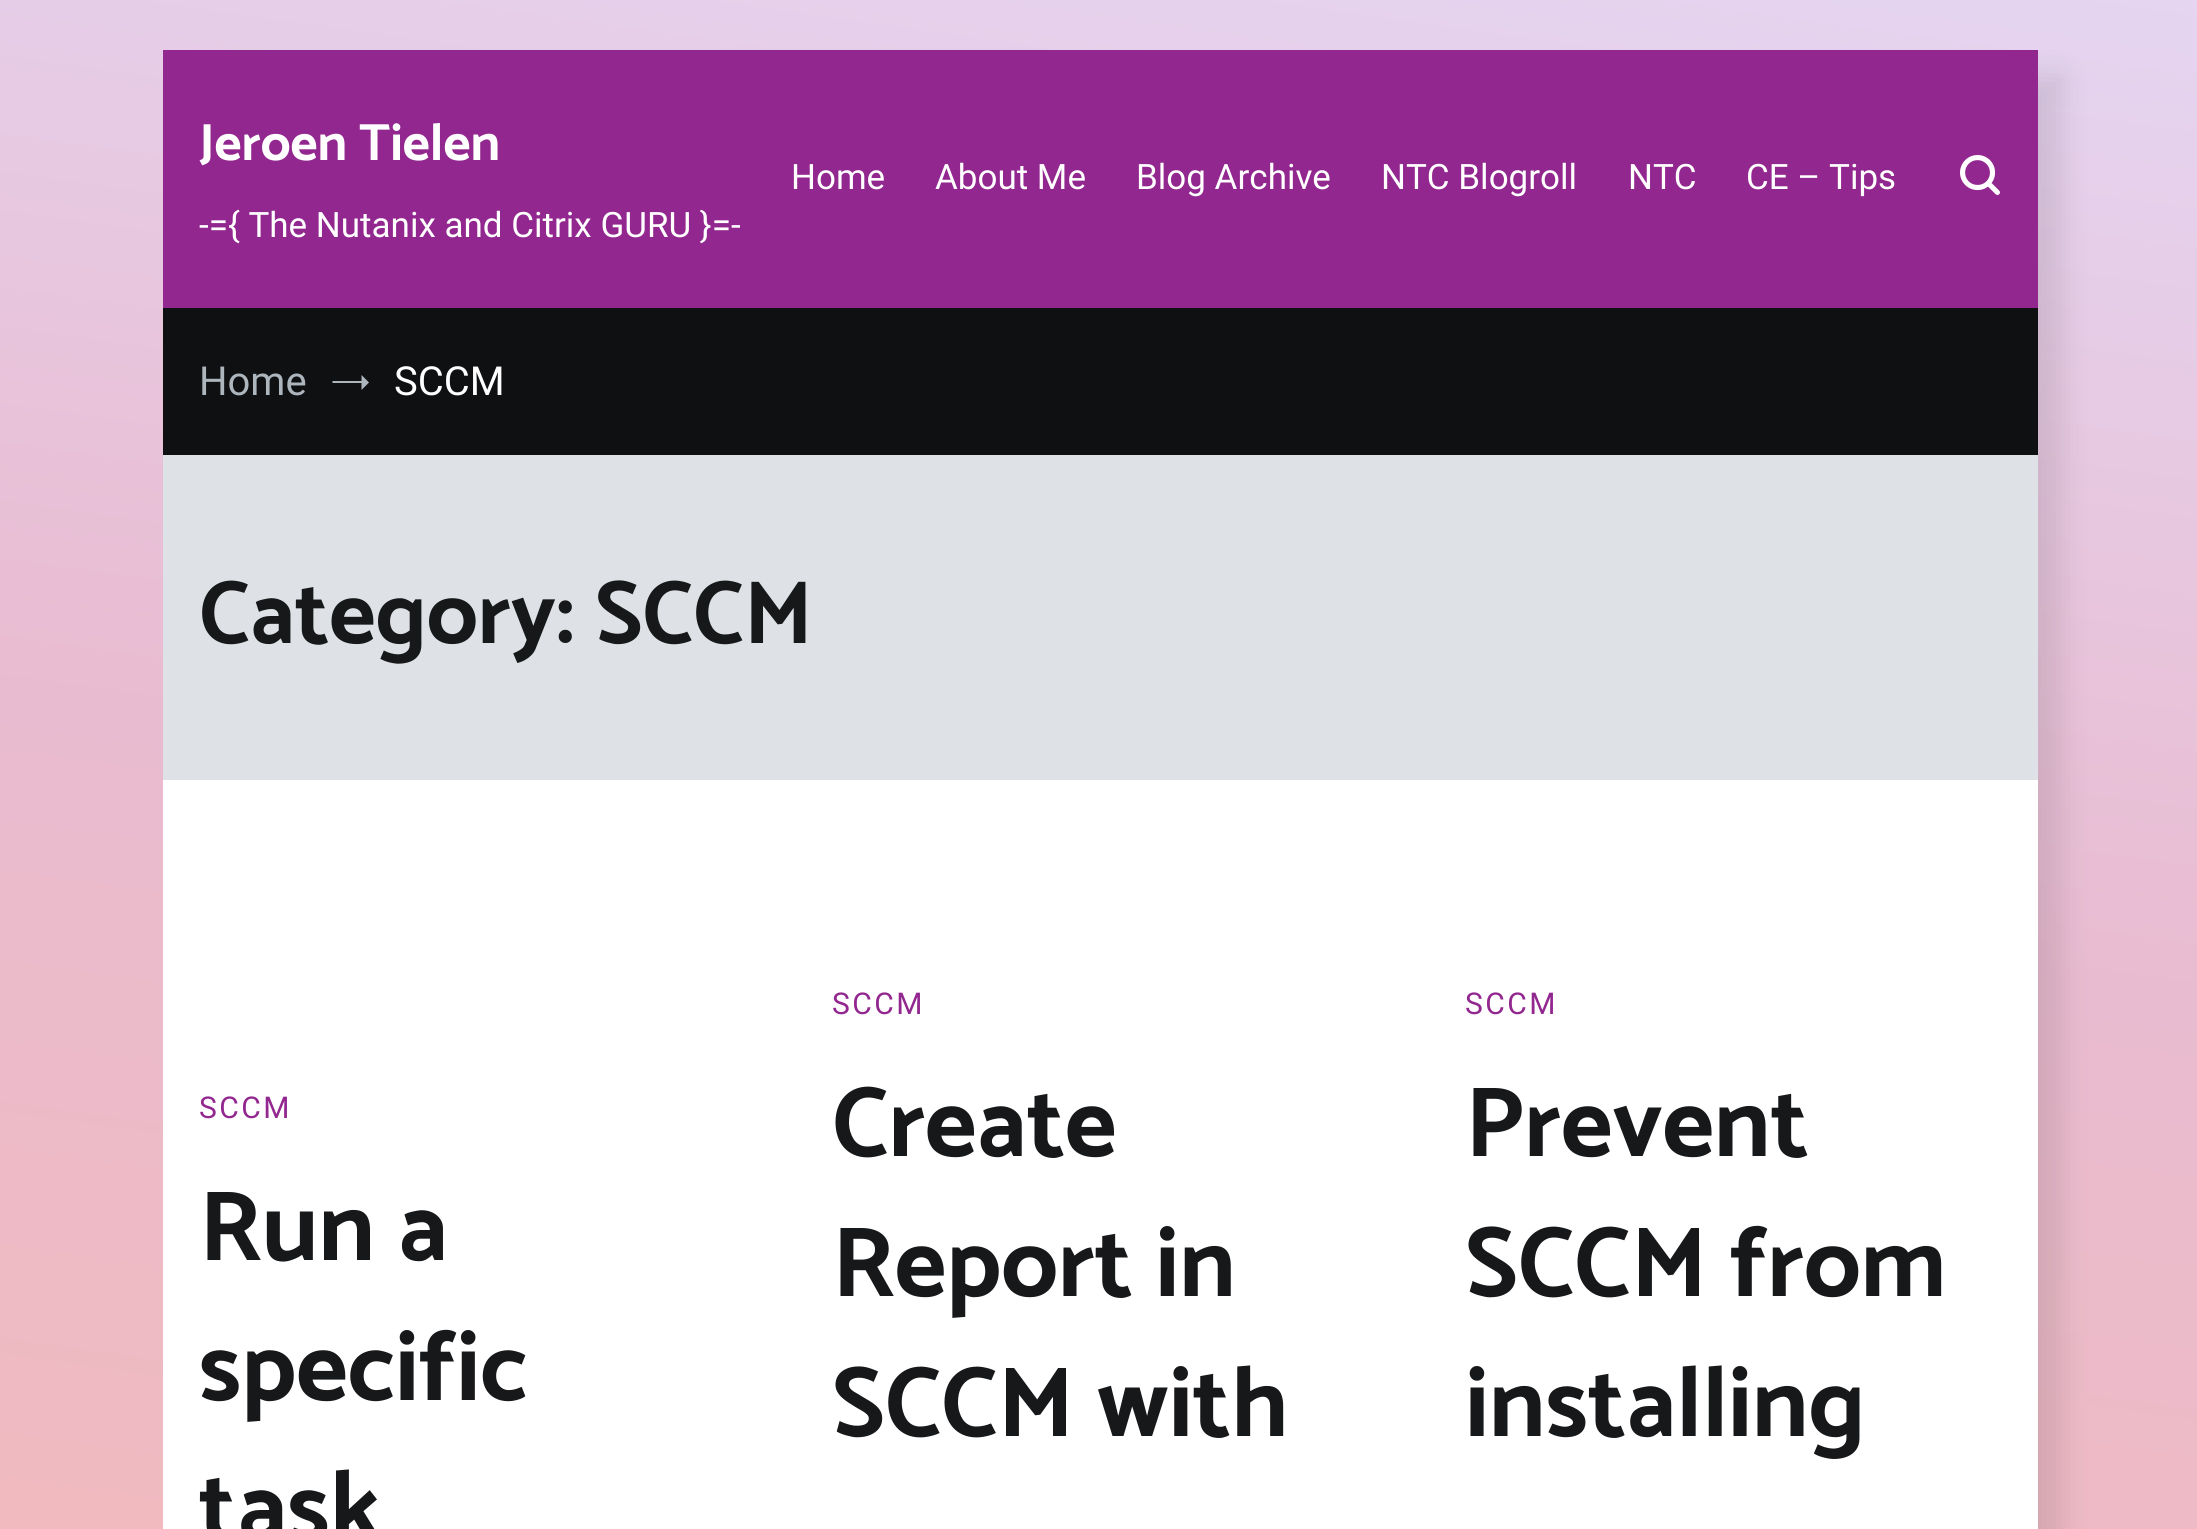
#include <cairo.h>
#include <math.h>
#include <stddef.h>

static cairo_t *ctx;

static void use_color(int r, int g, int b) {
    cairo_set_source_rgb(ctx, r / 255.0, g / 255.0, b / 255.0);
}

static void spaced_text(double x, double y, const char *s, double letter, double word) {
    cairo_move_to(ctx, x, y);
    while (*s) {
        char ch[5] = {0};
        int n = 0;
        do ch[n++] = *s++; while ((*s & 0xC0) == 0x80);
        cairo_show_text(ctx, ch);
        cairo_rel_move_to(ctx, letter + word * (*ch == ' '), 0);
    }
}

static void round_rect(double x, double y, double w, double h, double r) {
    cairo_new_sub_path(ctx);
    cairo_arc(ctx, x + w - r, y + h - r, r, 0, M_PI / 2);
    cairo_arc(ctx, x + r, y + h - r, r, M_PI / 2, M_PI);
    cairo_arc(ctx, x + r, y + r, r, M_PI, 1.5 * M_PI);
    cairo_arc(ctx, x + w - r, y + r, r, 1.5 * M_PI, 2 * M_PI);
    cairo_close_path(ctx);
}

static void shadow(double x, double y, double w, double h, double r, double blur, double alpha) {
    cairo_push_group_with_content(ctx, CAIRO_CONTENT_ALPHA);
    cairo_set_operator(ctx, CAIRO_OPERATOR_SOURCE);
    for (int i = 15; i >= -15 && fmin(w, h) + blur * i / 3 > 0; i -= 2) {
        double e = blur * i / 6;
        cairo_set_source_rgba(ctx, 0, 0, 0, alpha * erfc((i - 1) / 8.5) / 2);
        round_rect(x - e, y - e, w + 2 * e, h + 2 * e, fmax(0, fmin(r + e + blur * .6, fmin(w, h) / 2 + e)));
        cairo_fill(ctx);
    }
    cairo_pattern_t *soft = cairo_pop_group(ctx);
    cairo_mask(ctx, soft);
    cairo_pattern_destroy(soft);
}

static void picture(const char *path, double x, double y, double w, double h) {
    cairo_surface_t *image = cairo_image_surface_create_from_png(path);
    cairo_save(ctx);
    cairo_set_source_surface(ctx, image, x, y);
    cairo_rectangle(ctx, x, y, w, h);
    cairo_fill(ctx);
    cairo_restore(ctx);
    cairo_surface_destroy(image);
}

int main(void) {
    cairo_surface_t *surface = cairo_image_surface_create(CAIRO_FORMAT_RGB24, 2197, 1529);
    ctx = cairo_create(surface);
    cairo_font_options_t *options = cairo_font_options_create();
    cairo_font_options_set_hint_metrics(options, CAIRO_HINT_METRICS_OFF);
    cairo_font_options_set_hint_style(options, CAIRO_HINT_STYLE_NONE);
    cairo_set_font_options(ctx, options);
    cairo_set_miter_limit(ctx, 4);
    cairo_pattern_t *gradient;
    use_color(255, 255, 255);
    cairo_paint(ctx);
    gradient = cairo_pattern_create_linear(1532, -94, 666, 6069);
    cairo_pattern_add_color_stop_rgba(gradient, 0, 0.898, 0.835, 0.945, 1);
    cairo_pattern_add_color_stop_rgba(gradient, 0.16, 0.914, 0.733, 0.816, 1);
    cairo_pattern_add_color_stop_rgba(gradient, 0.43, 0.969, 0.725, 0.675, 1);
    cairo_pattern_add_color_stop_rgba(gradient, 0.67, 0.965, 0.925, 0.89, 1);
    cairo_pattern_add_color_stop_rgba(gradient, 0.85, 0.918, 0.949, 0.89, 1);
    cairo_pattern_add_color_stop_rgba(gradient, 1, 0.918, 0.949, 0.89, 1);
    cairo_set_source(ctx, gradient);
    cairo_pattern_destroy(gradient);
    cairo_rectangle(ctx, 0, 0, 2197, 1529);
    cairo_fill(ctx);
    use_color(0, 0, 0);
    shadow(188, 75, 1875, 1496, 0, 14, 0.1);
    use_color(255, 255, 255);
    cairo_rectangle(ctx, 163, 780, 1875, 749);
    cairo_fill(ctx);
    use_color(146, 39, 143);
    cairo_rectangle(ctx, 163, 50, 1875, 258);
    cairo_fill(ctx);
    cairo_select_font_face(ctx, "Catamaran", CAIRO_FONT_SLANT_NORMAL, CAIRO_FONT_WEIGHT_BOLD);
    cairo_set_font_size(ctx, 52.5);
    use_color(255, 255, 255);
    cairo_move_to(ctx, 199, 160);
    cairo_show_text(ctx, "Jeroen Tielen");
    cairo_select_font_face(ctx, "Roboto", CAIRO_FONT_SLANT_NORMAL, CAIRO_FONT_WEIGHT_NORMAL);
    cairo_set_font_size(ctx, 35);
    cairo_move_to(ctx, 199, 237);
    cairo_show_text(ctx, "-={ The Nutanix and Citrix GURU }=-");
    cairo_move_to(ctx, 791, 189);
    cairo_show_text(ctx, "Home");
    cairo_move_to(ctx, 935, 189);
    cairo_show_text(ctx, "About Me");
    cairo_move_to(ctx, 1136, 189);
    cairo_show_text(ctx, "Blog Archive");
    cairo_move_to(ctx, 1381, 189);
    cairo_show_text(ctx, "NTC Blogroll");
    cairo_move_to(ctx, 1628, 189);
    cairo_show_text(ctx, "NTC");
    cairo_move_to(ctx, 1746, 189);
    cairo_show_text(ctx, "CE – Tips");
    picture("img1.png", 1960, 155, 40, 40);
    use_color(15, 16, 18);
    cairo_rectangle(ctx, 163, 308, 1875, 147);
    cairo_fill(ctx);
    cairo_set_font_size(ctx, 40);
    use_color(173, 181, 189);
    cairo_move_to(ctx, 199, 395);
    cairo_show_text(ctx, "Home");
    cairo_new_path(ctx);
    cairo_move_to(ctx, 369, 382.5);
    cairo_line_to(ctx, 361.5, 390);
    cairo_line_to(ctx, 361.5, 375);
    cairo_close_path(ctx);
    cairo_move_to(ctx, 332.5, 381);
    cairo_line_to(ctx, 362, 381);
    cairo_line_to(ctx, 362, 383);
    cairo_line_to(ctx, 332.5, 383);
    cairo_close_path(ctx);
    cairo_fill(ctx);
    use_color(255, 255, 255);
    cairo_move_to(ctx, 394, 395);
    cairo_show_text(ctx, "SCCM");
    use_color(222, 226, 230);
    cairo_rectangle(ctx, 163, 455, 1875, 325);
    cairo_fill(ctx);
    cairo_select_font_face(ctx, "Catamaran", CAIRO_FONT_SLANT_NORMAL, CAIRO_FONT_WEIGHT_BOLD);
    cairo_set_font_size(ctx, 90);
    use_color(22, 24, 26);
    cairo_move_to(ctx, 199, 643);
    cairo_show_text(ctx, "Category: SCCM");
    cairo_select_font_face(ctx, "Roboto", CAIRO_FONT_SLANT_NORMAL, CAIRO_FONT_WEIGHT_NORMAL);
    cairo_set_font_size(ctx, 30);
    use_color(146, 39, 143);
    spaced_text(199, 1118, "SCCM", 2.5, 0);
    cairo_select_font_face(ctx, "Catamaran", CAIRO_FONT_SLANT_NORMAL, CAIRO_FONT_WEIGHT_BOLD);
    cairo_set_font_size(ctx, 100);
    use_color(22, 24, 26);
    cairo_move_to(ctx, 199, 1260);
    cairo_show_text(ctx, "Run a");
    cairo_move_to(ctx, 199, 1400);
    cairo_show_text(ctx, "specific");
    cairo_move_to(ctx, 199, 1540);
    cairo_show_text(ctx, "task");
    cairo_select_font_face(ctx, "Roboto", CAIRO_FONT_SLANT_NORMAL, CAIRO_FONT_WEIGHT_NORMAL);
    cairo_set_font_size(ctx, 30);
    use_color(146, 39, 143);
    spaced_text(832, 1014, "SCCM", 2.5, 0);
    cairo_select_font_face(ctx, "Catamaran", CAIRO_FONT_SLANT_NORMAL, CAIRO_FONT_WEIGHT_BOLD);
    cairo_set_font_size(ctx, 100);
    use_color(22, 24, 26);
    cairo_move_to(ctx, 832, 1156);
    cairo_show_text(ctx, "Create");
    cairo_move_to(ctx, 832, 1296);
    cairo_show_text(ctx, "Report in");
    cairo_move_to(ctx, 832, 1436);
    cairo_show_text(ctx, "SCCM with");
    cairo_select_font_face(ctx, "Roboto", CAIRO_FONT_SLANT_NORMAL, CAIRO_FONT_WEIGHT_NORMAL);
    cairo_set_font_size(ctx, 30);
    use_color(146, 39, 143);
    spaced_text(1465, 1014, "SCCM", 2.5, 0);
    cairo_select_font_face(ctx, "Catamaran", CAIRO_FONT_SLANT_NORMAL, CAIRO_FONT_WEIGHT_BOLD);
    cairo_set_font_size(ctx, 100);
    use_color(22, 24, 26);
    cairo_move_to(ctx, 1465, 1156);
    cairo_show_text(ctx, "Prevent");
    cairo_move_to(ctx, 1465, 1296);
    cairo_show_text(ctx, "SCCM from");
    cairo_move_to(ctx, 1465, 1436);
    cairo_show_text(ctx, "installing");
    cairo_surface_write_to_png(surface, "result.png");
    cairo_font_options_destroy(options);
    cairo_destroy(ctx);
    cairo_surface_destroy(surface);
    return 0;
}
